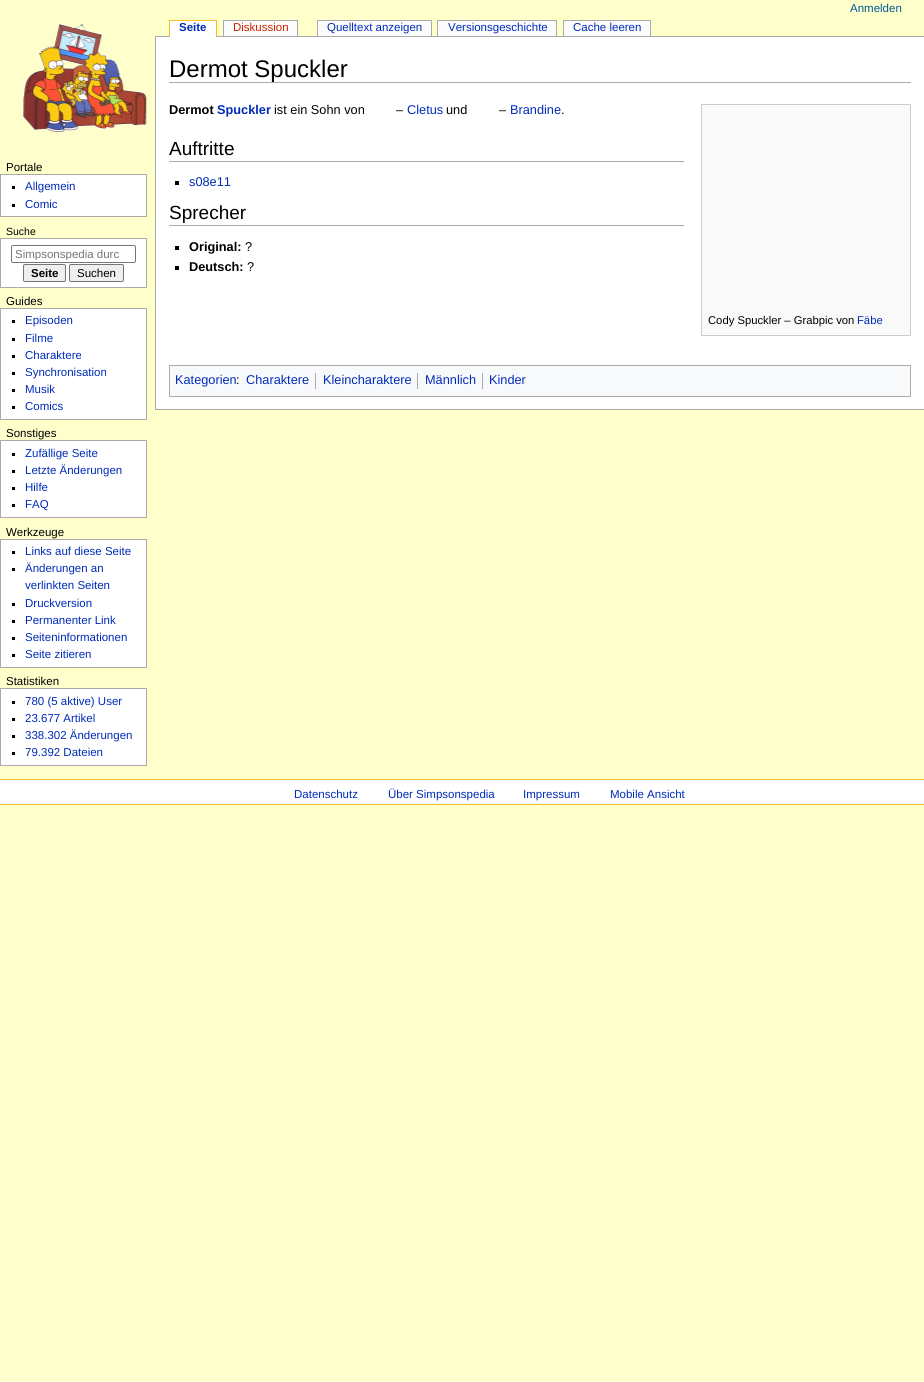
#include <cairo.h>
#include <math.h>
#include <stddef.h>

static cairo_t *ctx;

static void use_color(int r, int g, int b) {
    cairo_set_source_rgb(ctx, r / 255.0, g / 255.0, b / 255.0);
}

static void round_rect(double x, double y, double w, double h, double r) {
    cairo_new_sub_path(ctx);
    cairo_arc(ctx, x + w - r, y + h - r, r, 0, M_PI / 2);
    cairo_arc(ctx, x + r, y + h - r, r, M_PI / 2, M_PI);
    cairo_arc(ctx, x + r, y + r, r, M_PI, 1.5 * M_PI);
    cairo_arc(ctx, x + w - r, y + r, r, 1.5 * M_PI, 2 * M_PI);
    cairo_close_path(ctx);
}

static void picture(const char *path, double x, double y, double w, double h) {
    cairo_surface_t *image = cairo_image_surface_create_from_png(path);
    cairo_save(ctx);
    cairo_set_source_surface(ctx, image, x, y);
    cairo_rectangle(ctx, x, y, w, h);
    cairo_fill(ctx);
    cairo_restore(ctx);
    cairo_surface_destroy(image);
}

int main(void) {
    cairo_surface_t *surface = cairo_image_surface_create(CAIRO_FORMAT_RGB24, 924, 1382);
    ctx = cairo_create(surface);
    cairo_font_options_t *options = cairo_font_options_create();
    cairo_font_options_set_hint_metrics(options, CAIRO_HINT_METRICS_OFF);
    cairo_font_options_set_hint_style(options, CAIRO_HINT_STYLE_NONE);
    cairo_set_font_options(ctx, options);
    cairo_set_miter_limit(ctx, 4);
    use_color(255, 255, 204);
    cairo_paint(ctx);
    cairo_select_font_face(ctx, "Liberation Sans", CAIRO_FONT_SLANT_NORMAL, CAIRO_FONT_WEIGHT_NORMAL);
    cairo_set_font_size(ctx, 11.5);
    use_color(0, 88, 150);
    cairo_move_to(ctx, 850, 12);
    cairo_show_text(ctx, "Anmelden");
    picture("img1.png", 23, 24, 124, 108);
    use_color(170, 170, 170);
    cairo_rectangle(ctx, 155, 36, 769, 1);
    cairo_fill(ctx);
    use_color(255, 255, 255);
    cairo_rectangle(ctx, 170, 21, 46, 16);
    cairo_fill(ctx);
    cairo_select_font_face(ctx, "Liberation Sans", CAIRO_FONT_SLANT_NORMAL, CAIRO_FONT_WEIGHT_BOLD);
    use_color(0, 43, 184);
    cairo_move_to(ctx, 179, 31);
    cairo_show_text(ctx, "Seite");
    use_color(250, 189, 35);
    cairo_rectangle(ctx, 169, 20, 48, 1);
    cairo_fill(ctx);
    cairo_rectangle(ctx, 216, 20, 1, 16);
    cairo_fill(ctx);
    cairo_rectangle(ctx, 169, 20, 1, 16);
    cairo_fill(ctx);
    use_color(251, 251, 251);
    cairo_rectangle(ctx, 224, 21, 73, 15);
    cairo_fill(ctx);
    cairo_select_font_face(ctx, "Liberation Sans", CAIRO_FONT_SLANT_NORMAL, CAIRO_FONT_WEIGHT_NORMAL);
    use_color(204, 34, 0);
    cairo_move_to(ctx, 233, 31);
    cairo_show_text(ctx, "Diskussion");
    use_color(170, 170, 170);
    cairo_rectangle(ctx, 223, 20, 75, 1);
    cairo_fill(ctx);
    cairo_rectangle(ctx, 297, 20, 1, 16);
    cairo_fill(ctx);
    cairo_rectangle(ctx, 223, 20, 1, 16);
    cairo_fill(ctx);
    use_color(251, 251, 251);
    cairo_rectangle(ctx, 318, 21, 113, 15);
    cairo_fill(ctx);
    use_color(0, 43, 184);
    cairo_move_to(ctx, 327, 31);
    cairo_show_text(ctx, "Quelltext anzeigen");
    use_color(170, 170, 170);
    cairo_rectangle(ctx, 317, 20, 115, 1);
    cairo_fill(ctx);
    cairo_rectangle(ctx, 431, 20, 1, 16);
    cairo_fill(ctx);
    cairo_rectangle(ctx, 317, 20, 1, 16);
    cairo_fill(ctx);
    use_color(251, 251, 251);
    cairo_rectangle(ctx, 438, 21, 118, 15);
    cairo_fill(ctx);
    use_color(0, 43, 184);
    cairo_move_to(ctx, 448, 31);
    cairo_show_text(ctx, "Versionsgeschichte");
    use_color(170, 170, 170);
    cairo_rectangle(ctx, 437, 20, 120, 1);
    cairo_fill(ctx);
    cairo_rectangle(ctx, 556, 20, 1, 16);
    cairo_fill(ctx);
    cairo_rectangle(ctx, 437, 20, 1, 16);
    cairo_fill(ctx);
    use_color(251, 251, 251);
    cairo_rectangle(ctx, 564, 21, 86, 15);
    cairo_fill(ctx);
    use_color(0, 43, 184);
    cairo_move_to(ctx, 573, 31);
    cairo_show_text(ctx, "Cache leeren");
    use_color(170, 170, 170);
    cairo_rectangle(ctx, 563, 20, 88, 1);
    cairo_fill(ctx);
    cairo_rectangle(ctx, 650, 20, 1, 16);
    cairo_fill(ctx);
    cairo_rectangle(ctx, 563, 20, 1, 16);
    cairo_fill(ctx);
    use_color(0, 0, 0);
    cairo_move_to(ctx, 6, 171);
    cairo_show_text(ctx, "Portale");
    use_color(255, 255, 255);
    cairo_rectangle(ctx, 0.5, 174.5, 146, 42);
    cairo_fill_preserve(ctx);
    use_color(170, 170, 170);
    cairo_set_line_width(ctx, 1);
    cairo_stroke(ctx);
    use_color(0, 0, 0);
    cairo_rectangle(ctx, 12, 186, 3, 3);
    cairo_fill(ctx);
    use_color(0, 43, 184);
    cairo_move_to(ctx, 25, 190);
    cairo_show_text(ctx, "Allgemein");
    use_color(0, 0, 0);
    cairo_rectangle(ctx, 12, 204, 3, 3);
    cairo_fill(ctx);
    use_color(0, 43, 184);
    cairo_move_to(ctx, 25, 208);
    cairo_show_text(ctx, "Comic");
    cairo_set_font_size(ctx, 10.5);
    use_color(0, 0, 0);
    cairo_move_to(ctx, 6, 235);
    cairo_show_text(ctx, "Suche");
    use_color(255, 255, 255);
    cairo_rectangle(ctx, 0.5, 238.5, 146, 49);
    cairo_fill_preserve(ctx);
    use_color(170, 170, 170);
    cairo_stroke(ctx);
    round_rect(11.5, 245.5, 124, 17, 1.5);
    use_color(118, 118, 118);
    cairo_stroke(ctx);
    cairo_save(ctx);
    cairo_rectangle(ctx, 15, 248, 105, 12);
    cairo_clip(ctx);
    cairo_set_font_size(ctx, 11.5);
    use_color(117, 117, 117);
    cairo_move_to(ctx, 15, 258);
    cairo_show_text(ctx, "Simpsonspedia durc");
    cairo_restore(ctx);
    use_color(239, 239, 239);
    round_rect(23.5, 264.5, 42, 17, 1.5);
    cairo_fill_preserve(ctx);
    use_color(118, 118, 118);
    cairo_stroke(ctx);
    cairo_select_font_face(ctx, "Liberation Sans", CAIRO_FONT_SLANT_NORMAL, CAIRO_FONT_WEIGHT_BOLD);
    cairo_set_font_size(ctx, 11.5);
    use_color(0, 0, 0);
    cairo_move_to(ctx, 31, 277);
    cairo_show_text(ctx, "Seite");
    use_color(239, 239, 239);
    round_rect(69.5, 264.5, 54, 17, 1.5);
    cairo_fill_preserve(ctx);
    use_color(118, 118, 118);
    cairo_stroke(ctx);
    cairo_select_font_face(ctx, "Liberation Sans", CAIRO_FONT_SLANT_NORMAL, CAIRO_FONT_WEIGHT_NORMAL);
    use_color(0, 0, 0);
    cairo_move_to(ctx, 77, 277);
    cairo_show_text(ctx, "Suchen");
    cairo_move_to(ctx, 6, 305);
    cairo_show_text(ctx, "Guides");
    use_color(255, 255, 255);
    cairo_rectangle(ctx, 0.5, 308.5, 146, 111);
    cairo_fill_preserve(ctx);
    use_color(170, 170, 170);
    cairo_stroke(ctx);
    use_color(0, 0, 0);
    cairo_rectangle(ctx, 12, 320, 3, 3);
    cairo_fill(ctx);
    use_color(0, 43, 184);
    cairo_move_to(ctx, 25, 324);
    cairo_show_text(ctx, "Episoden");
    use_color(0, 0, 0);
    cairo_rectangle(ctx, 12, 338, 3, 3);
    cairo_fill(ctx);
    use_color(0, 43, 184);
    cairo_move_to(ctx, 25, 342);
    cairo_show_text(ctx, "Filme");
    use_color(0, 0, 0);
    cairo_rectangle(ctx, 12, 355, 3, 3);
    cairo_fill(ctx);
    use_color(0, 43, 184);
    cairo_move_to(ctx, 25, 359);
    cairo_show_text(ctx, "Charaktere");
    use_color(0, 0, 0);
    cairo_rectangle(ctx, 12, 372, 3, 3);
    cairo_fill(ctx);
    use_color(0, 43, 184);
    cairo_move_to(ctx, 25, 376);
    cairo_show_text(ctx, "Synchronisation");
    use_color(0, 0, 0);
    cairo_rectangle(ctx, 12, 389, 3, 3);
    cairo_fill(ctx);
    use_color(0, 43, 184);
    cairo_move_to(ctx, 25, 393);
    cairo_show_text(ctx, "Musik");
    use_color(0, 0, 0);
    cairo_rectangle(ctx, 12, 406, 3, 3);
    cairo_fill(ctx);
    use_color(0, 43, 184);
    cairo_move_to(ctx, 25, 410);
    cairo_show_text(ctx, "Comics");
    use_color(0, 0, 0);
    cairo_move_to(ctx, 6, 437);
    cairo_show_text(ctx, "Sonstiges");
    use_color(255, 255, 255);
    cairo_rectangle(ctx, 0.5, 440.5, 146, 77);
    cairo_fill_preserve(ctx);
    use_color(170, 170, 170);
    cairo_stroke(ctx);
    use_color(0, 0, 0);
    cairo_rectangle(ctx, 12, 453, 3, 3);
    cairo_fill(ctx);
    use_color(0, 43, 184);
    cairo_move_to(ctx, 25, 457);
    cairo_show_text(ctx, "Zufällige Seite");
    use_color(0, 0, 0);
    cairo_rectangle(ctx, 12, 470, 3, 3);
    cairo_fill(ctx);
    use_color(0, 43, 184);
    cairo_move_to(ctx, 25, 474);
    cairo_show_text(ctx, "Letzte Änderungen");
    use_color(0, 0, 0);
    cairo_rectangle(ctx, 12, 487, 3, 3);
    cairo_fill(ctx);
    use_color(0, 43, 184);
    cairo_move_to(ctx, 25, 491);
    cairo_show_text(ctx, "Hilfe");
    use_color(0, 0, 0);
    cairo_rectangle(ctx, 12, 504, 3, 3);
    cairo_fill(ctx);
    use_color(0, 43, 184);
    cairo_move_to(ctx, 25, 508);
    cairo_show_text(ctx, "FAQ");
    use_color(0, 0, 0);
    cairo_move_to(ctx, 6, 536);
    cairo_show_text(ctx, "Werkzeuge");
    use_color(255, 255, 255);
    cairo_rectangle(ctx, 0.5, 539.5, 146, 128);
    cairo_fill_preserve(ctx);
    use_color(170, 170, 170);
    cairo_stroke(ctx);
    use_color(0, 0, 0);
    cairo_rectangle(ctx, 12, 551, 3, 3);
    cairo_fill(ctx);
    use_color(0, 43, 184);
    cairo_move_to(ctx, 25, 555);
    cairo_show_text(ctx, "Links auf diese Seite");
    use_color(0, 0, 0);
    cairo_rectangle(ctx, 12, 568, 3, 3);
    cairo_fill(ctx);
    use_color(0, 43, 184);
    cairo_move_to(ctx, 25, 572);
    cairo_show_text(ctx, "Änderungen an");
    cairo_move_to(ctx, 25, 589);
    cairo_show_text(ctx, "verlinkten Seiten");
    use_color(0, 0, 0);
    cairo_rectangle(ctx, 12, 603, 3, 3);
    cairo_fill(ctx);
    use_color(0, 43, 184);
    cairo_move_to(ctx, 25, 607);
    cairo_show_text(ctx, "Druckversion");
    use_color(0, 0, 0);
    cairo_rectangle(ctx, 12, 620, 3, 3);
    cairo_fill(ctx);
    use_color(0, 43, 184);
    cairo_move_to(ctx, 25, 624);
    cairo_show_text(ctx, "Permanenter Link");
    use_color(0, 0, 0);
    cairo_rectangle(ctx, 12, 637, 3, 3);
    cairo_fill(ctx);
    use_color(0, 43, 184);
    cairo_move_to(ctx, 25, 641);
    cairo_show_text(ctx, "Seiteninformationen");
    use_color(0, 0, 0);
    cairo_rectangle(ctx, 12, 654, 3, 3);
    cairo_fill(ctx);
    use_color(0, 43, 184);
    cairo_move_to(ctx, 25, 658);
    cairo_show_text(ctx, "Seite zitieren");
    use_color(0, 0, 0);
    cairo_move_to(ctx, 6, 685);
    cairo_show_text(ctx, "Statistiken");
    use_color(255, 255, 255);
    cairo_rectangle(ctx, 0.5, 688.5, 146, 77);
    cairo_fill_preserve(ctx);
    use_color(170, 170, 170);
    cairo_stroke(ctx);
    use_color(0, 0, 0);
    cairo_rectangle(ctx, 12, 701, 3, 3);
    cairo_fill(ctx);
    use_color(0, 43, 184);
    cairo_move_to(ctx, 25, 705);
    cairo_show_text(ctx, "780 (5 aktive) User");
    use_color(0, 0, 0);
    cairo_rectangle(ctx, 12, 718, 3, 3);
    cairo_fill(ctx);
    use_color(0, 43, 184);
    cairo_move_to(ctx, 25, 722);
    cairo_show_text(ctx, "23.677 Artikel");
    use_color(0, 0, 0);
    cairo_rectangle(ctx, 12, 735, 3, 3);
    cairo_fill(ctx);
    use_color(0, 43, 184);
    cairo_move_to(ctx, 25, 739);
    cairo_show_text(ctx, "338.302 Änderungen");
    use_color(0, 0, 0);
    cairo_rectangle(ctx, 12, 752, 3, 3);
    cairo_fill(ctx);
    use_color(0, 43, 184);
    cairo_move_to(ctx, 25, 756);
    cairo_show_text(ctx, "79.392 Dateien");
    use_color(255, 255, 255);
    cairo_rectangle(ctx, 156, 37, 768, 372);
    cairo_fill(ctx);
    use_color(170, 170, 170);
    cairo_rectangle(ctx, 155, 409, 769, 1);
    cairo_fill(ctx);
    cairo_rectangle(ctx, 155, 36, 1, 374);
    cairo_fill(ctx);
    cairo_rectangle(ctx, 169, 82, 742, 1);
    cairo_fill(ctx);
    cairo_set_font_size(ctx, 24);
    use_color(0, 0, 0);
    cairo_move_to(ctx, 169, 77);
    cairo_show_text(ctx, "Dermot Spuckler");
    cairo_select_font_face(ctx, "Liberation Sans", CAIRO_FONT_SLANT_NORMAL, CAIRO_FONT_WEIGHT_BOLD);
    cairo_set_font_size(ctx, 12.75);
    cairo_move_to(ctx, 169, 114);
    cairo_show_text(ctx, "Dermot");
    use_color(0, 43, 184);
    cairo_move_to(ctx, 217, 114);
    cairo_show_text(ctx, "Spuckler");
    cairo_select_font_face(ctx, "Liberation Sans", CAIRO_FONT_SLANT_NORMAL, CAIRO_FONT_WEIGHT_NORMAL);
    use_color(0, 0, 0);
    cairo_move_to(ctx, 274, 114);
    cairo_show_text(ctx, "ist ein Sohn von");
    cairo_move_to(ctx, 396, 114);
    cairo_show_text(ctx, "–");
    use_color(0, 43, 184);
    cairo_move_to(ctx, 407, 114);
    cairo_show_text(ctx, "Cletus");
    use_color(0, 0, 0);
    cairo_move_to(ctx, 446, 114);
    cairo_show_text(ctx, "und");
    cairo_move_to(ctx, 499, 114);
    cairo_show_text(ctx, "–");
    use_color(0, 43, 184);
    cairo_move_to(ctx, 510, 114);
    cairo_show_text(ctx, "Brandine");
    use_color(0, 0, 0);
    cairo_move_to(ctx, 561, 114);
    cairo_show_text(ctx, ".");
    use_color(170, 170, 170);
    cairo_rectangle(ctx, 169, 161, 515, 1);
    cairo_fill(ctx);
    cairo_set_font_size(ctx, 19);
    use_color(0, 0, 0);
    cairo_move_to(ctx, 169, 155);
    cairo_show_text(ctx, "Auftritte");
    cairo_rectangle(ctx, 175, 181, 4, 4);
    cairo_fill(ctx);
    cairo_set_font_size(ctx, 12.75);
    use_color(0, 43, 184);
    cairo_move_to(ctx, 189, 186);
    cairo_show_text(ctx, "s08e11");
    use_color(170, 170, 170);
    cairo_rectangle(ctx, 169, 225, 515, 1);
    cairo_fill(ctx);
    cairo_set_font_size(ctx, 19);
    use_color(0, 0, 0);
    cairo_move_to(ctx, 169, 219);
    cairo_show_text(ctx, "Sprecher");
    cairo_rectangle(ctx, 175, 246, 4, 4);
    cairo_fill(ctx);
    cairo_select_font_face(ctx, "Liberation Sans", CAIRO_FONT_SLANT_NORMAL, CAIRO_FONT_WEIGHT_BOLD);
    cairo_set_font_size(ctx, 12.75);
    cairo_move_to(ctx, 189, 251);
    cairo_show_text(ctx, "Original:");
    cairo_select_font_face(ctx, "Liberation Sans", CAIRO_FONT_SLANT_NORMAL, CAIRO_FONT_WEIGHT_NORMAL);
    cairo_move_to(ctx, 245, 251);
    cairo_show_text(ctx, "?");
    cairo_rectangle(ctx, 175, 266, 4, 4);
    cairo_fill(ctx);
    cairo_select_font_face(ctx, "Liberation Sans", CAIRO_FONT_SLANT_NORMAL, CAIRO_FONT_WEIGHT_BOLD);
    cairo_move_to(ctx, 189, 271);
    cairo_show_text(ctx, "Deutsch:");
    cairo_select_font_face(ctx, "Liberation Sans", CAIRO_FONT_SLANT_NORMAL, CAIRO_FONT_WEIGHT_NORMAL);
    cairo_move_to(ctx, 247, 271);
    cairo_show_text(ctx, "?");
    use_color(249, 249, 249);
    cairo_rectangle(ctx, 702, 105, 208, 230);
    cairo_fill(ctx);
    use_color(204, 204, 204);
    cairo_rectangle(ctx, 701, 104, 210, 1);
    cairo_fill(ctx);
    cairo_rectangle(ctx, 701, 335, 210, 1);
    cairo_fill(ctx);
    cairo_rectangle(ctx, 910, 104, 1, 232);
    cairo_fill(ctx);
    cairo_rectangle(ctx, 701, 104, 1, 232);
    cairo_fill(ctx);
    cairo_set_font_size(ctx, 11.25);
    use_color(0, 0, 0);
    cairo_move_to(ctx, 708, 324);
    cairo_show_text(ctx, "Cody Spuckler – Grabpic von");
    use_color(0, 43, 184);
    cairo_move_to(ctx, 857, 324);
    cairo_show_text(ctx, "Fäbe");
    use_color(248, 249, 250);
    cairo_rectangle(ctx, 169.5, 365.5, 741, 31);
    cairo_fill_preserve(ctx);
    use_color(170, 170, 170);
    cairo_stroke(ctx);
    cairo_set_font_size(ctx, 12.75);
    use_color(0, 43, 184);
    cairo_move_to(ctx, 175, 384);
    cairo_show_text(ctx, "Kategorien");
    use_color(0, 0, 0);
    cairo_move_to(ctx, 236, 384);
    cairo_show_text(ctx, ":");
    use_color(0, 43, 184);
    cairo_move_to(ctx, 246, 384);
    cairo_show_text(ctx, "Charaktere");
    use_color(170, 170, 170);
    cairo_rectangle(ctx, 315, 373, 1, 16);
    cairo_fill(ctx);
    use_color(0, 43, 184);
    cairo_move_to(ctx, 323, 384);
    cairo_show_text(ctx, "Kleincharaktere");
    use_color(170, 170, 170);
    cairo_rectangle(ctx, 417, 373, 1, 16);
    cairo_fill(ctx);
    use_color(0, 43, 184);
    cairo_move_to(ctx, 425, 384);
    cairo_show_text(ctx, "Männlich");
    use_color(170, 170, 170);
    cairo_rectangle(ctx, 482, 373, 1, 16);
    cairo_fill(ctx);
    use_color(0, 43, 184);
    cairo_move_to(ctx, 489, 384);
    cairo_show_text(ctx, "Kinder");
    use_color(255, 255, 255);
    cairo_rectangle(ctx, 0, 780, 924, 24);
    cairo_fill(ctx);
    use_color(250, 189, 35);
    cairo_rectangle(ctx, 0, 779, 924, 1);
    cairo_fill(ctx);
    cairo_rectangle(ctx, 0, 804, 924, 1);
    cairo_fill(ctx);
    cairo_set_font_size(ctx, 11.5);
    use_color(0, 43, 184);
    cairo_move_to(ctx, 294, 798);
    cairo_show_text(ctx, "Datenschutz");
    cairo_move_to(ctx, 388, 798);
    cairo_show_text(ctx, "Über Simpsonspedia");
    cairo_move_to(ctx, 523, 798);
    cairo_show_text(ctx, "Impressum");
    cairo_move_to(ctx, 610, 798);
    cairo_show_text(ctx, "Mobile Ansicht");
    cairo_surface_write_to_png(surface, "result.png");
    cairo_font_options_destroy(options);
    cairo_destroy(ctx);
    cairo_surface_destroy(surface);
    return 0;
}
